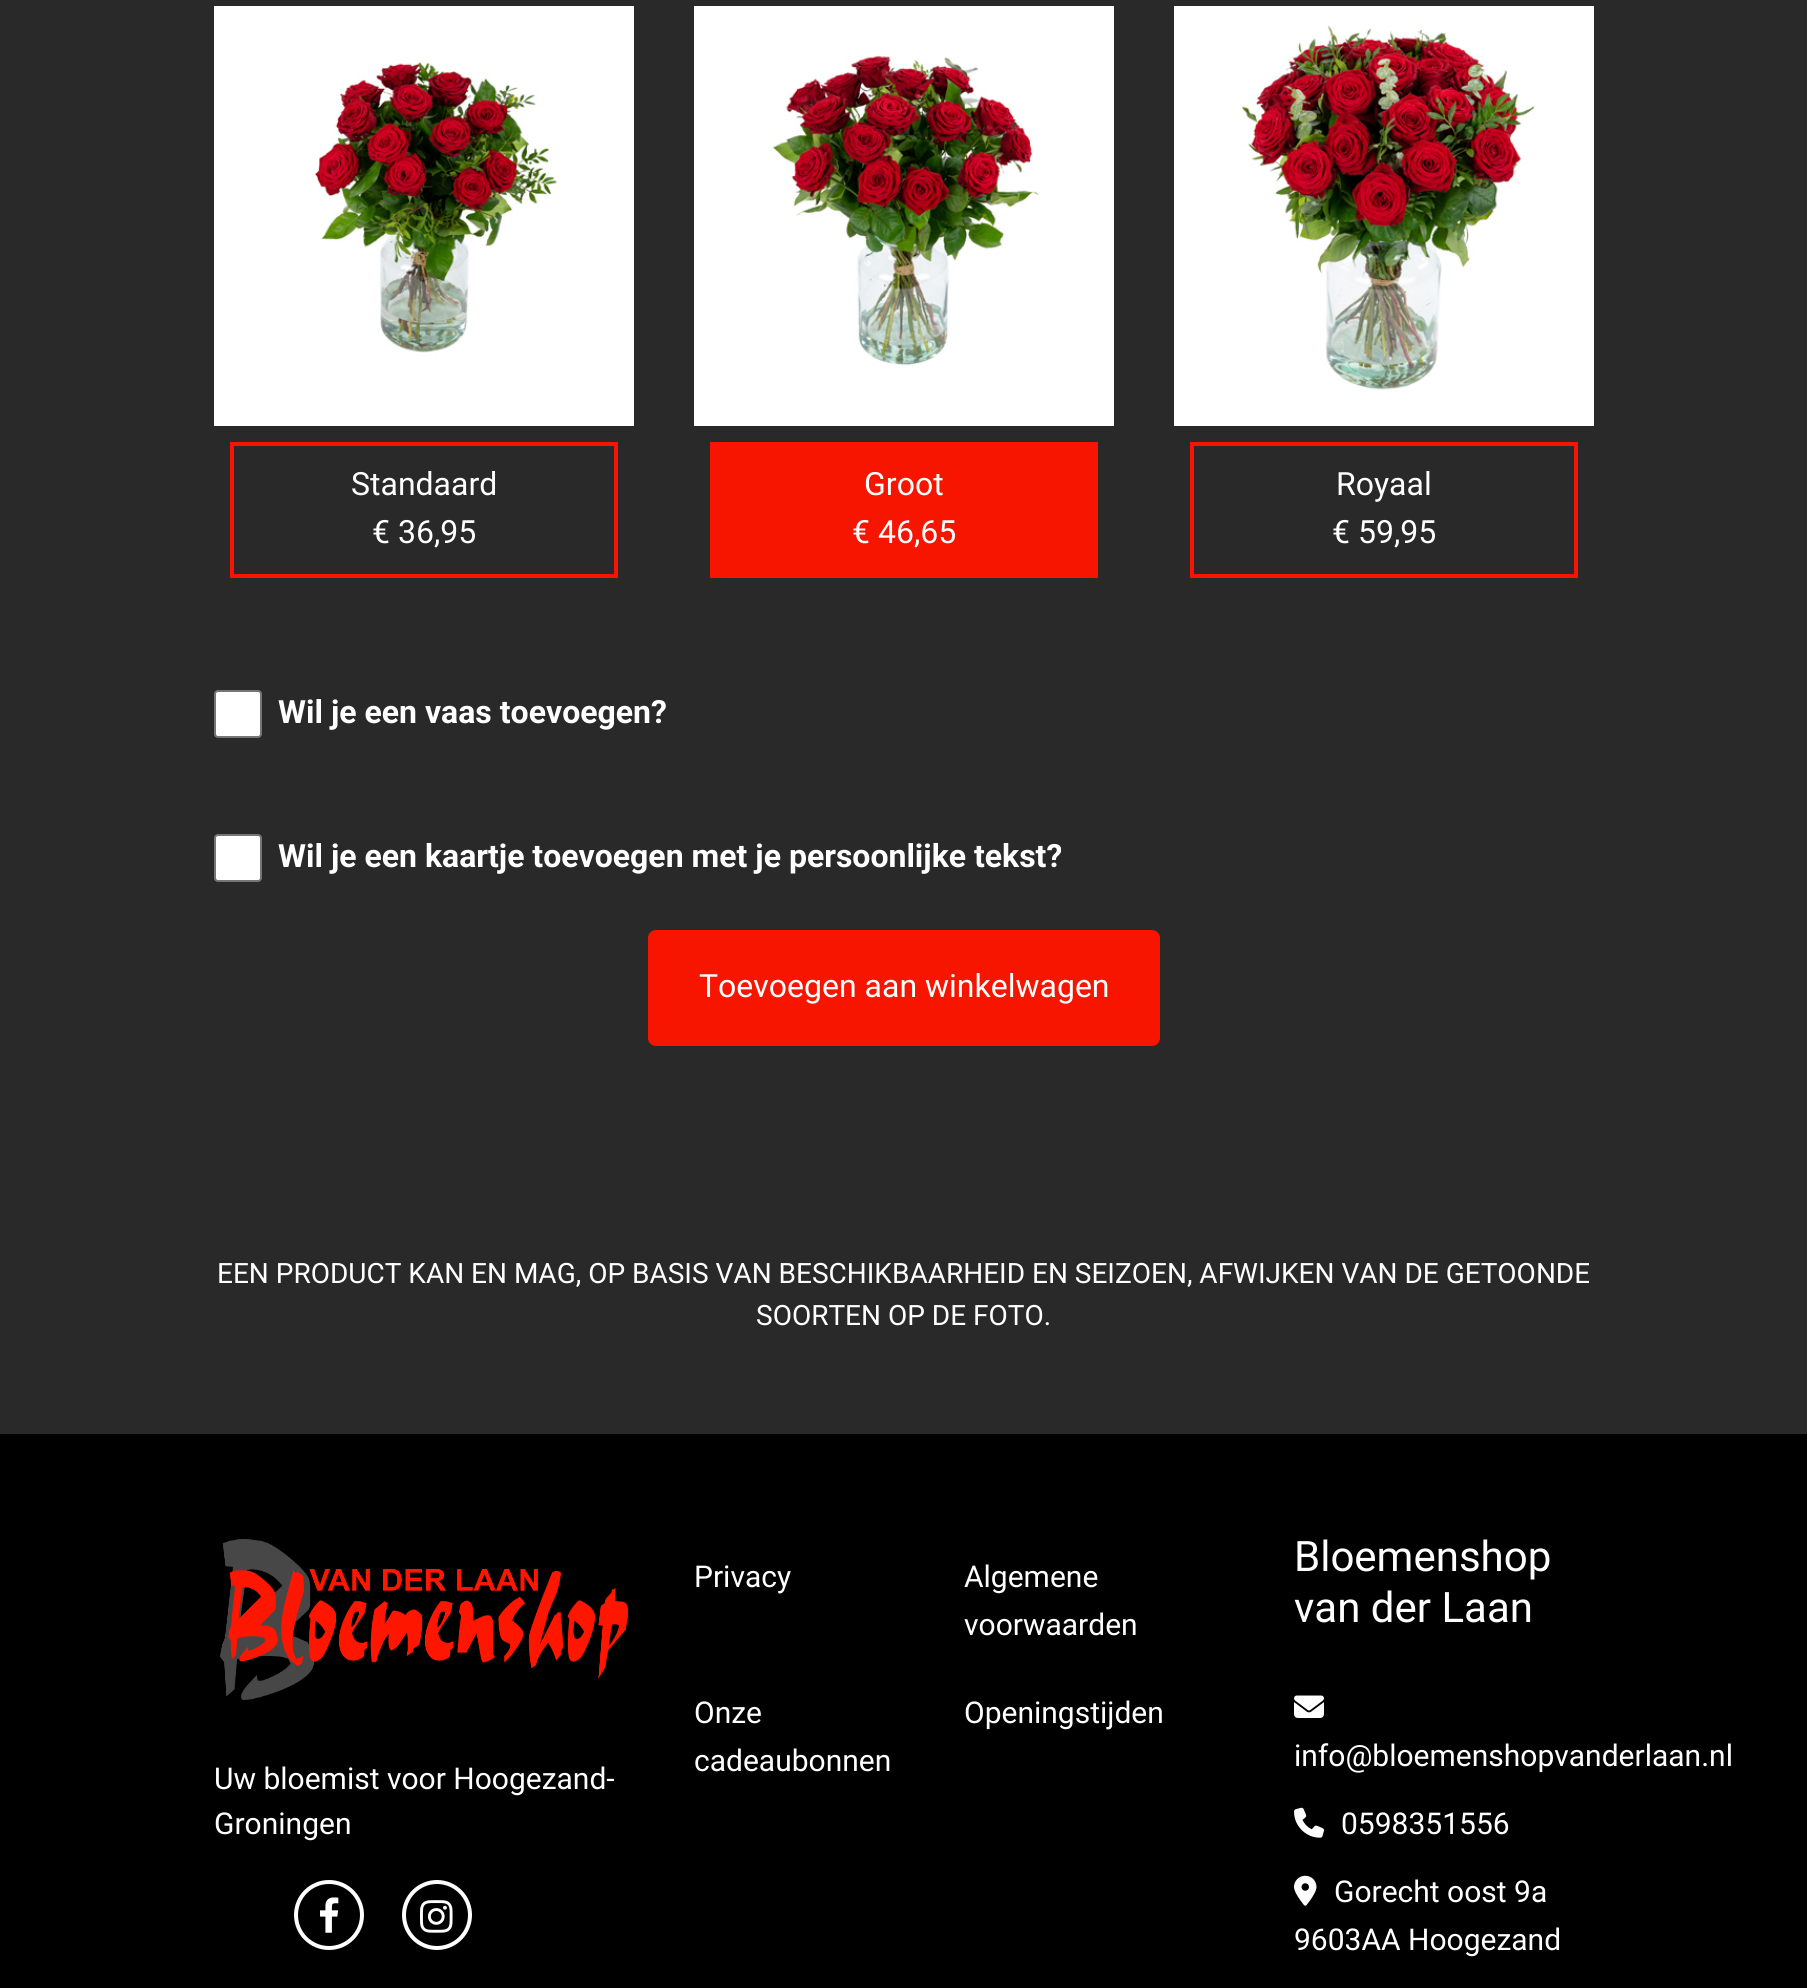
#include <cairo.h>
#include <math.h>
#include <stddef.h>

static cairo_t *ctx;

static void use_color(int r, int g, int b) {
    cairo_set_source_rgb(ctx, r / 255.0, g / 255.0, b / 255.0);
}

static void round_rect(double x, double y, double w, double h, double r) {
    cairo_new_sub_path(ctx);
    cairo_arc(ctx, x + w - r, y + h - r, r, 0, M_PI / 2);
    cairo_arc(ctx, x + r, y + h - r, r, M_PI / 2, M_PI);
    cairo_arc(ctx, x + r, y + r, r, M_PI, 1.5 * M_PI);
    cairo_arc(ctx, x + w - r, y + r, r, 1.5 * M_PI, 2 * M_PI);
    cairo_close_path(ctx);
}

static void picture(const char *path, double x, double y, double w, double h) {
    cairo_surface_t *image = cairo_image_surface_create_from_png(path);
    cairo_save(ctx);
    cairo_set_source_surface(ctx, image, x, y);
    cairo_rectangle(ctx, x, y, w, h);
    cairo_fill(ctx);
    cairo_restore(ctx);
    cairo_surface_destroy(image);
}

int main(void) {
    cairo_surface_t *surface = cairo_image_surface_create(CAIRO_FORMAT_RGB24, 1807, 1988);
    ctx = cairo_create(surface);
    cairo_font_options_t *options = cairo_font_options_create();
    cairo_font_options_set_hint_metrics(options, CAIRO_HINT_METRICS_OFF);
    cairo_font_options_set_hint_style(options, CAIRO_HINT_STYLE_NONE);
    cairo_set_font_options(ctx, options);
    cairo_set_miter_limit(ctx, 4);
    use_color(41, 41, 41);
    cairo_paint(ctx);
    picture("img1.png", 214, 6, 420, 420);
    cairo_rectangle(ctx, 232, 444, 384, 132);
    use_color(247, 21, 0);
    cairo_set_line_width(ctx, 4);
    cairo_stroke(ctx);
    cairo_select_font_face(ctx, "Roboto", CAIRO_FONT_SLANT_NORMAL, CAIRO_FONT_WEIGHT_NORMAL);
    cairo_set_font_size(ctx, 32);
    use_color(255, 255, 255);
    cairo_move_to(ctx, 351, 495);
    cairo_show_text(ctx, "Standaard");
    cairo_move_to(ctx, 372, 543);
    cairo_show_text(ctx, "€ 36,95");
    picture("img2.png", 694, 6, 420, 420);
    use_color(247, 21, 0);
    cairo_rectangle(ctx, 710, 442, 388, 136);
    cairo_fill(ctx);
    use_color(255, 255, 255);
    cairo_move_to(ctx, 864, 495);
    cairo_show_text(ctx, "Groot");
    cairo_move_to(ctx, 852, 543);
    cairo_show_text(ctx, "€ 46,65");
    picture("img3.png", 1174, 6, 420, 420);
    cairo_rectangle(ctx, 1192, 444, 384, 132);
    use_color(247, 21, 0);
    cairo_stroke(ctx);
    use_color(255, 255, 255);
    cairo_move_to(ctx, 1336, 495);
    cairo_show_text(ctx, "Royaal");
    cairo_move_to(ctx, 1332, 543);
    cairo_show_text(ctx, "€ 59,95");
    round_rect(215, 691, 46, 46, 3);
    cairo_fill_preserve(ctx);
    use_color(118, 118, 118);
    cairo_set_line_width(ctx, 2);
    cairo_stroke(ctx);
    cairo_select_font_face(ctx, "Roboto", CAIRO_FONT_SLANT_NORMAL, CAIRO_FONT_WEIGHT_BOLD);
    use_color(255, 255, 255);
    cairo_move_to(ctx, 278, 723);
    cairo_show_text(ctx, "Wil je een vaas toevoegen?");
    round_rect(215, 835, 46, 46, 3);
    cairo_fill_preserve(ctx);
    use_color(118, 118, 118);
    cairo_stroke(ctx);
    use_color(255, 255, 255);
    cairo_move_to(ctx, 278, 867);
    cairo_show_text(ctx, "Wil je een kaartje toevoegen met je persoonlijke tekst?");
    use_color(247, 21, 0);
    round_rect(648, 930, 512, 116, 8);
    cairo_fill(ctx);
    cairo_select_font_face(ctx, "Roboto", CAIRO_FONT_SLANT_NORMAL, CAIRO_FONT_WEIGHT_NORMAL);
    use_color(255, 255, 255);
    cairo_move_to(ctx, 699, 997);
    cairo_show_text(ctx, "Toevoegen aan winkelwagen");
    cairo_set_font_size(ctx, 28);
    cairo_move_to(ctx, 217, 1283);
    cairo_show_text(ctx, "EEN PRODUCT KAN EN MAG, OP BASIS VAN BESCHIKBAARHEID EN SEIZOEN, AFWIJKEN VAN DE GETOONDE");
    cairo_move_to(ctx, 756, 1325);
    cairo_show_text(ctx, "SOORTEN OP DE FOTO.");
    use_color(0, 0, 0);
    cairo_rectangle(ctx, 0, 1434, 1807, 554);
    cairo_fill(ctx);
    cairo_set_font_size(ctx, 30);
    use_color(255, 255, 255);
    cairo_move_to(ctx, 694, 1587);
    cairo_show_text(ctx, "Privacy");
    cairo_move_to(ctx, 964, 1587);
    cairo_show_text(ctx, "Algemene");
    cairo_move_to(ctx, 964, 1635);
    cairo_show_text(ctx, "voorwaarden");
    cairo_move_to(ctx, 694, 1723);
    cairo_show_text(ctx, "Onze");
    cairo_move_to(ctx, 694, 1771);
    cairo_show_text(ctx, "cadeaubonnen");
    cairo_move_to(ctx, 964, 1723);
    cairo_show_text(ctx, "Openingstijden");
    cairo_set_font_size(ctx, 42);
    cairo_move_to(ctx, 1294, 1571);
    cairo_show_text(ctx, "Bloemenshop");
    cairo_move_to(ctx, 1294, 1622);
    cairo_show_text(ctx, "van der Laan");
    picture("img4.png", 1294, 1695, 30, 23);
    cairo_set_font_size(ctx, 30);
    cairo_move_to(ctx, 1294, 1766);
    cairo_show_text(ctx, "info@bloemenshopvanderlaan.nl");
    picture("img5.png", 1294, 1807, 30, 31);
    cairo_move_to(ctx, 1341, 1834);
    cairo_show_text(ctx, "0598351556");
    picture("img6.png", 1294, 1875, 23, 31);
    cairo_move_to(ctx, 1334, 1902);
    cairo_show_text(ctx, "Gorecht oost 9a");
    cairo_move_to(ctx, 1294, 1950);
    cairo_show_text(ctx, "9603AA Hoogezand");
    picture("img7.png", 220, 1538, 409, 162);
    cairo_move_to(ctx, 214, 1789);
    cairo_show_text(ctx, "Uw bloemist voor Hoogezand-");
    cairo_move_to(ctx, 214, 1834);
    cairo_show_text(ctx, "Groningen");
    cairo_new_path(ctx);
    cairo_arc(ctx, 329, 1915, 33, 0, 2 * M_PI);
    cairo_set_line_width(ctx, 4);
    cairo_stroke(ctx);
    picture("img8.png", 320, 1897, 19, 36);
    cairo_arc(ctx, 437, 1915, 33, 0, 2 * M_PI);
    cairo_stroke(ctx);
    picture("img9.png", 420, 1900, 33, 33);
    cairo_surface_write_to_png(surface, "result.png");
    cairo_font_options_destroy(options);
    cairo_destroy(ctx);
    cairo_surface_destroy(surface);
    return 0;
}
